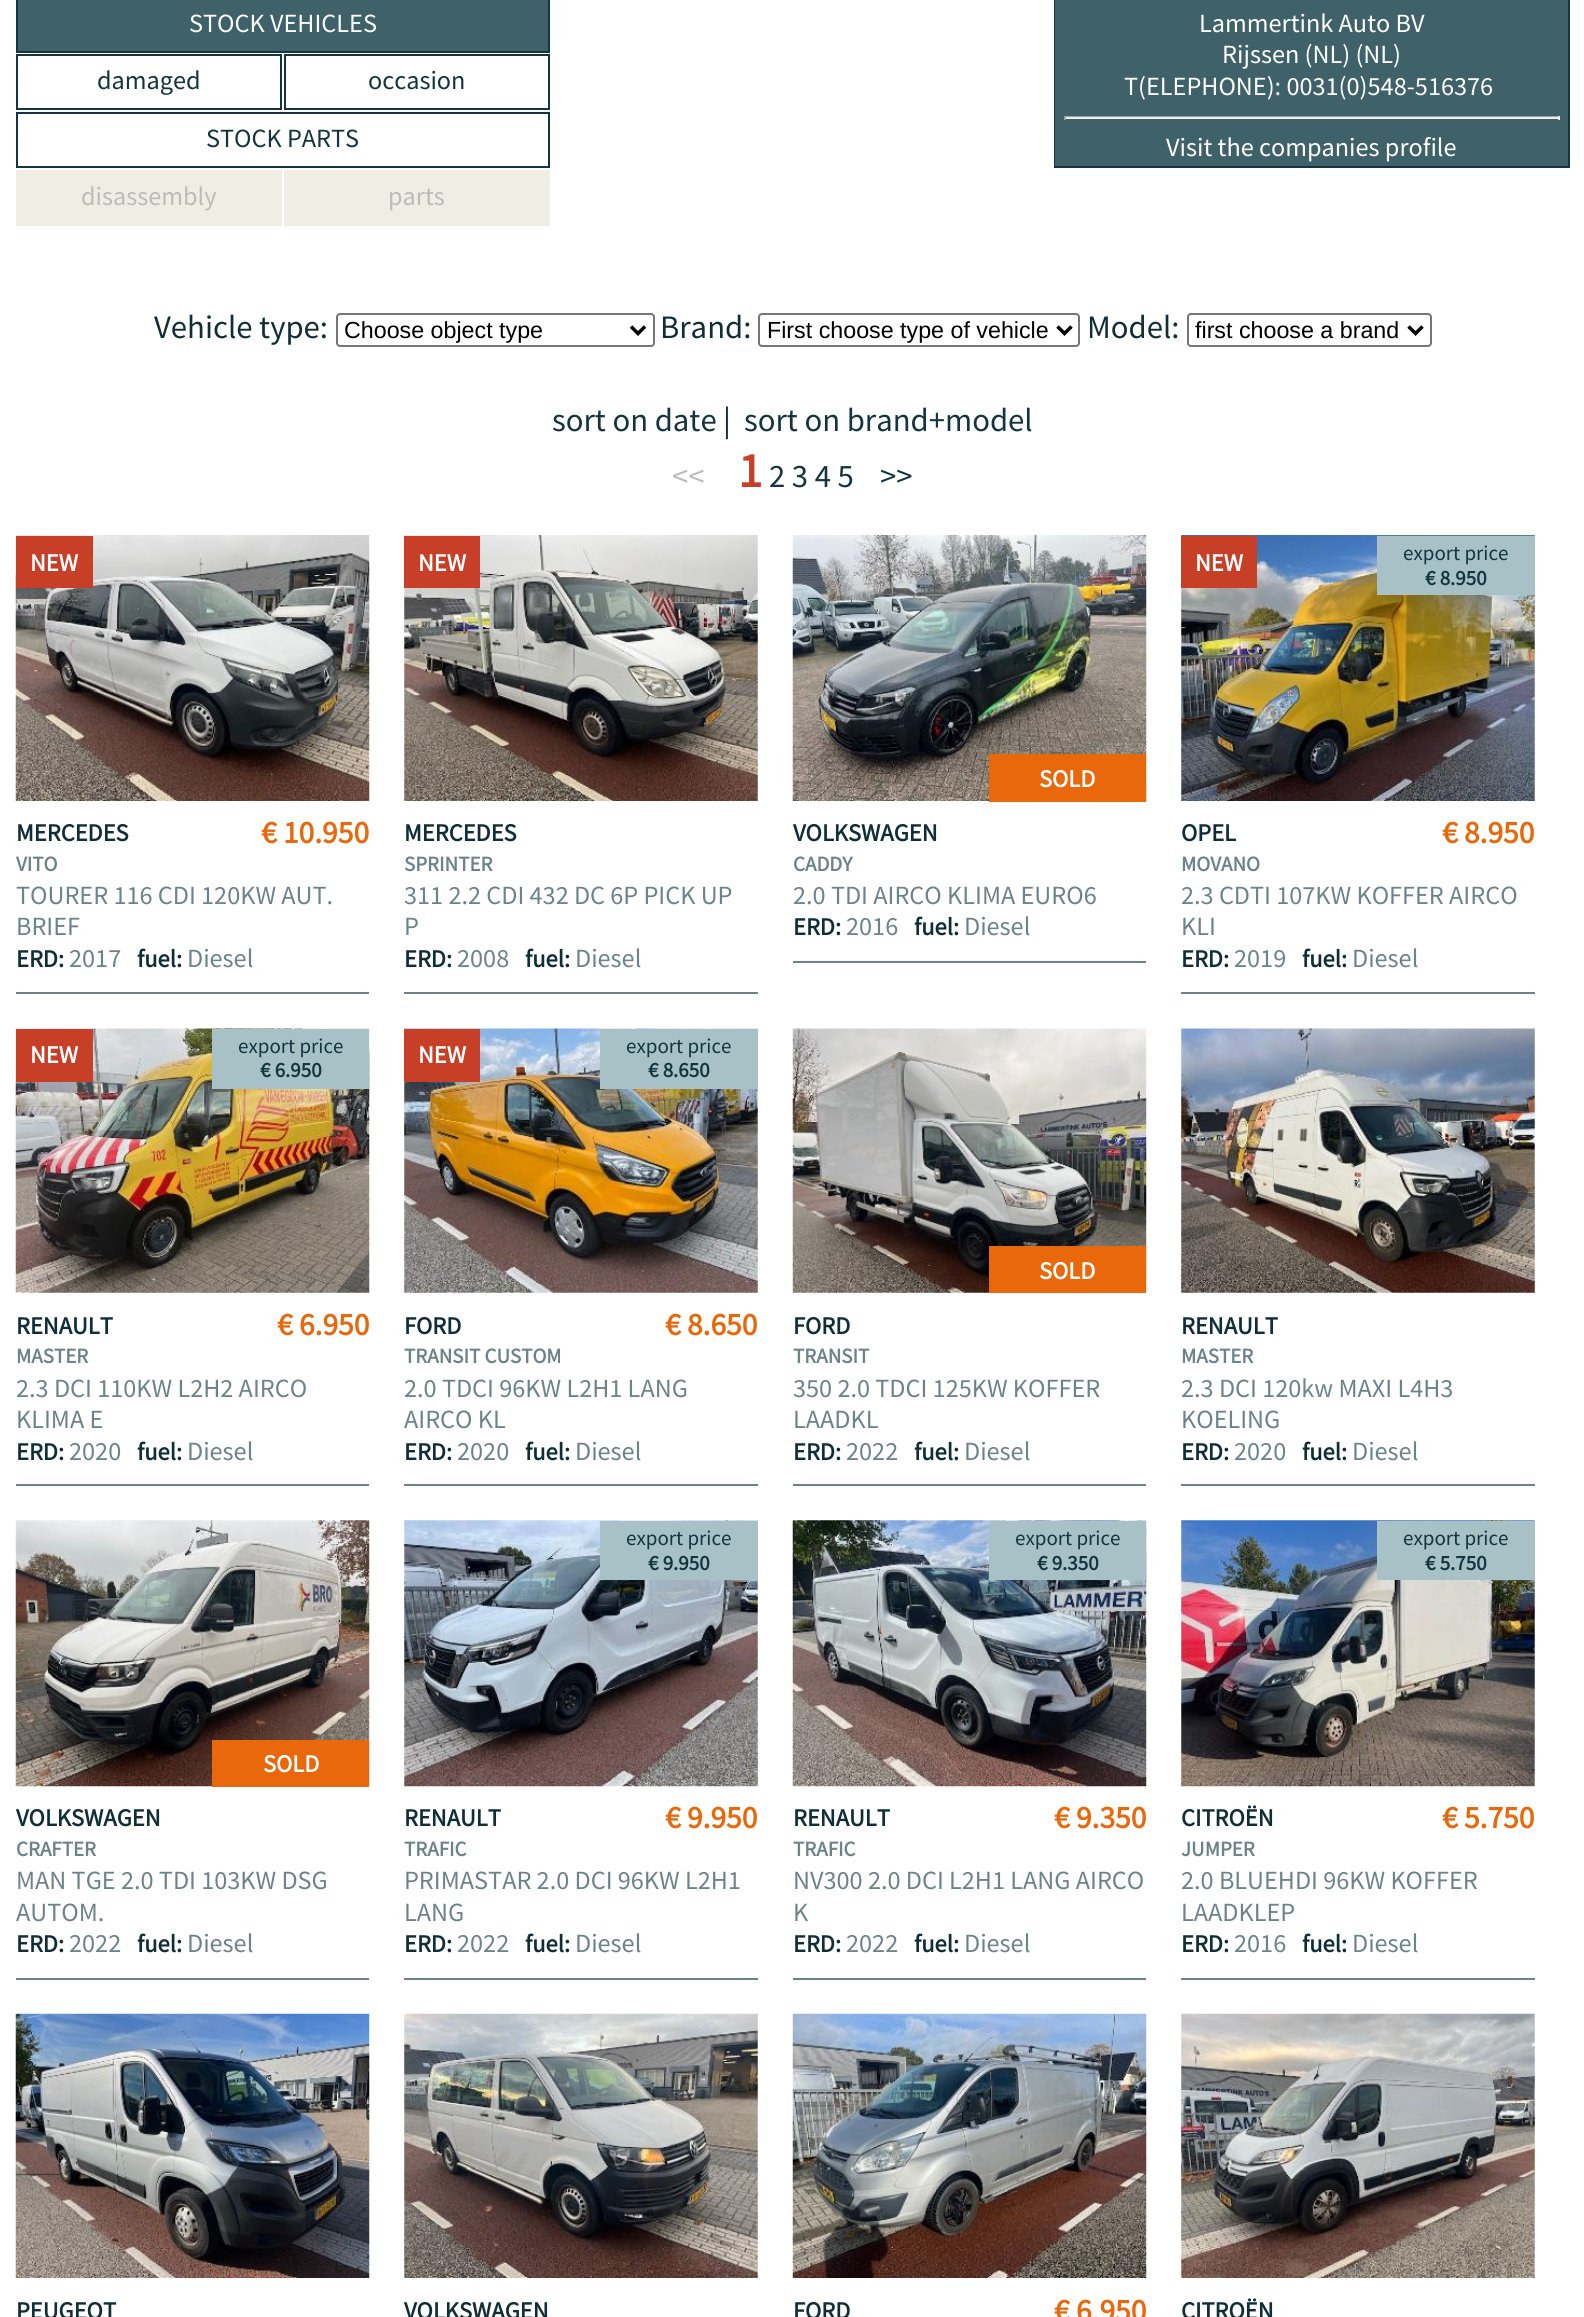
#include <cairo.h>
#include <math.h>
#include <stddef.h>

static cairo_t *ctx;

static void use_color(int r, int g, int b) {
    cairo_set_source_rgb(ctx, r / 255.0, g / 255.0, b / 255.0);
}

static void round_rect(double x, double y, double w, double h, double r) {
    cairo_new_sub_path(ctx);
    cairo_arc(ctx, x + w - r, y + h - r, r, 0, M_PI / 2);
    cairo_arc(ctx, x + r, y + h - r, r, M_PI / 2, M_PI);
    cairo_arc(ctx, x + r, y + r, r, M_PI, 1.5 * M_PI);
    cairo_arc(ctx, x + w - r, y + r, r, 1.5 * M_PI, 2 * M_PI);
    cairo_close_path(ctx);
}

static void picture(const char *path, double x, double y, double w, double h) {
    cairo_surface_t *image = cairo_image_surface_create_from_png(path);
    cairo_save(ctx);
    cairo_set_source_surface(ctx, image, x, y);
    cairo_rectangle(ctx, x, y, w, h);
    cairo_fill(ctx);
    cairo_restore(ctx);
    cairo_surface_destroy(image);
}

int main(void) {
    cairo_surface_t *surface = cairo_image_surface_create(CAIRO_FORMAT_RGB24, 1584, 2317);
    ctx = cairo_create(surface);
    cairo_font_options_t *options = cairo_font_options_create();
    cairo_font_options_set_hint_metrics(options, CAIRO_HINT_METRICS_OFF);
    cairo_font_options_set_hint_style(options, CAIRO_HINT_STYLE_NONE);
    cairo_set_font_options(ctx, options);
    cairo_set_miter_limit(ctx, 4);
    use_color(255, 255, 255);
    cairo_paint(ctx);
    use_color(63, 97, 106);
    cairo_rectangle(ctx, 17, -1, 532, 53);
    cairo_fill_preserve(ctx);
    use_color(20, 53, 62);
    cairo_stroke(ctx);
    cairo_select_font_face(ctx, "Source Sans Pro", CAIRO_FONT_SLANT_NORMAL, CAIRO_FONT_WEIGHT_NORMAL);
    cairo_set_font_size(ctx, 26.25);
    use_color(255, 255, 255);
    cairo_move_to(ctx, 189, 32);
    cairo_show_text(ctx, "STOCK VEHICLES");
    cairo_rectangle(ctx, 17, 55, 264, 54);
    use_color(20, 53, 62);
    cairo_stroke(ctx);
    cairo_move_to(ctx, 97, 89);
    cairo_show_text(ctx, "damaged");
    cairo_rectangle(ctx, 285, 55, 264, 54);
    cairo_stroke(ctx);
    cairo_move_to(ctx, 368, 89);
    cairo_show_text(ctx, "occasion");
    cairo_rectangle(ctx, 17, 113, 532, 54);
    cairo_stroke(ctx);
    cairo_move_to(ctx, 206, 147);
    cairo_show_text(ctx, "STOCK PARTS");
    use_color(240, 237, 229);
    cairo_rectangle(ctx, 16, 170, 266, 56);
    cairo_fill(ctx);
    use_color(187, 187, 187);
    cairo_move_to(ctx, 81, 205);
    cairo_show_text(ctx, "disassembly");
    use_color(240, 237, 229);
    cairo_rectangle(ctx, 284, 170, 266, 56);
    cairo_fill(ctx);
    use_color(187, 187, 187);
    cairo_move_to(ctx, 388, 205);
    cairo_show_text(ctx, "parts");
    cairo_rectangle(ctx, 1055, -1, 514, 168);
    use_color(20, 53, 62);
    cairo_stroke(ctx);
    use_color(63, 97, 106);
    cairo_rectangle(ctx, 1055, 0, 513, 166);
    cairo_fill(ctx);
    use_color(255, 255, 255);
    cairo_move_to(ctx, 1199, 32);
    cairo_show_text(ctx, "Lammertink Auto BV");
    cairo_move_to(ctx, 1222, 63);
    cairo_show_text(ctx, "Rijssen (NL) (NL)");
    cairo_move_to(ctx, 1124, 95);
    cairo_show_text(ctx, "T(ELEPHONE): 0031(0)548-516376");
    use_color(159, 159, 159);
    cairo_rectangle(ctx, 1064, 116, 495, 1);
    cairo_fill(ctx);
    use_color(238, 238, 238);
    cairo_rectangle(ctx, 1558, 116, 2, 4);
    cairo_fill(ctx);
    cairo_rectangle(ctx, 1064, 117, 495, 2);
    cairo_fill(ctx);
    use_color(159, 159, 159);
    cairo_rectangle(ctx, 1064, 116, 2, 4);
    cairo_fill(ctx);
    use_color(255, 255, 255);
    cairo_move_to(ctx, 1166, 156);
    cairo_show_text(ctx, "Visit the companies profile");
    cairo_set_font_size(ctx, 32.75);
    use_color(16, 46, 55);
    cairo_move_to(ctx, 154, 338);
    cairo_show_text(ctx, "Vehicle type:");
    round_rect(337, 314, 317, 32, 3);
    use_color(118, 118, 118);
    cairo_stroke(ctx);
    cairo_new_path(ctx);
    cairo_move_to(ctx, 631, 326.5);
    cairo_line_to(ctx, 638, 333.5);
    cairo_line_to(ctx, 645, 326.5);
    use_color(0, 0, 0);
    cairo_set_line_width(ctx, 3.5);
    cairo_stroke(ctx);
    cairo_select_font_face(ctx, "Liberation Sans", CAIRO_FONT_SLANT_NORMAL, CAIRO_FONT_WEIGHT_NORMAL);
    cairo_set_font_size(ctx, 23.25);
    cairo_move_to(ctx, 344, 338);
    cairo_show_text(ctx, "Choose object type");
    cairo_select_font_face(ctx, "Source Sans Pro", CAIRO_FONT_SLANT_NORMAL, CAIRO_FONT_WEIGHT_NORMAL);
    cairo_set_font_size(ctx, 32.75);
    use_color(16, 46, 55);
    cairo_move_to(ctx, 660, 338);
    cairo_show_text(ctx, "Brand:");
    round_rect(759, 314, 320, 32, 3);
    use_color(118, 118, 118);
    cairo_set_line_width(ctx, 2);
    cairo_stroke(ctx);
    cairo_new_path(ctx);
    cairo_move_to(ctx, 1057.5, 326.5);
    cairo_line_to(ctx, 1064.5, 333.5);
    cairo_line_to(ctx, 1071.5, 326.5);
    use_color(0, 0, 0);
    cairo_set_line_width(ctx, 3.5);
    cairo_stroke(ctx);
    cairo_select_font_face(ctx, "Liberation Sans", CAIRO_FONT_SLANT_NORMAL, CAIRO_FONT_WEIGHT_NORMAL);
    cairo_set_font_size(ctx, 23.25);
    cairo_move_to(ctx, 767, 338);
    cairo_show_text(ctx, "First choose type of vehicle");
    cairo_select_font_face(ctx, "Source Sans Pro", CAIRO_FONT_SLANT_NORMAL, CAIRO_FONT_WEIGHT_NORMAL);
    cairo_set_font_size(ctx, 32.75);
    use_color(16, 46, 55);
    cairo_move_to(ctx, 1087, 338);
    cairo_show_text(ctx, "Model:");
    round_rect(1188, 314, 243, 32, 3);
    use_color(118, 118, 118);
    cairo_set_line_width(ctx, 2);
    cairo_stroke(ctx);
    cairo_new_path(ctx);
    cairo_move_to(ctx, 1408.5, 326.5);
    cairo_line_to(ctx, 1415.5, 333.5);
    cairo_line_to(ctx, 1422.5, 326.5);
    use_color(0, 0, 0);
    cairo_set_line_width(ctx, 3.5);
    cairo_stroke(ctx);
    cairo_select_font_face(ctx, "Liberation Sans", CAIRO_FONT_SLANT_NORMAL, CAIRO_FONT_WEIGHT_NORMAL);
    cairo_set_font_size(ctx, 23.25);
    cairo_move_to(ctx, 1195, 338);
    cairo_show_text(ctx, "first choose a brand");
    cairo_select_font_face(ctx, "Source Sans Pro", CAIRO_FONT_SLANT_NORMAL, CAIRO_FONT_WEIGHT_NORMAL);
    cairo_set_font_size(ctx, 32.75);
    use_color(20, 53, 62);
    cairo_move_to(ctx, 552, 431);
    cairo_show_text(ctx, "sort on date");
    use_color(16, 46, 55);
    cairo_move_to(ctx, 723, 431);
    cairo_show_text(ctx, "|");
    use_color(20, 53, 62);
    cairo_move_to(ctx, 744, 431);
    cairo_show_text(ctx, "sort on brand+model");
    use_color(187, 187, 187);
    cairo_move_to(ctx, 672, 487);
    cairo_show_text(ctx, "<<");
    cairo_select_font_face(ctx, "Source Sans Pro", CAIRO_FONT_SLANT_NORMAL, CAIRO_FONT_WEIGHT_BOLD);
    cairo_set_font_size(ctx, 49);
    use_color(200, 63, 40);
    cairo_move_to(ctx, 738, 487);
    cairo_show_text(ctx, "1");
    cairo_select_font_face(ctx, "Source Sans Pro", CAIRO_FONT_SLANT_NORMAL, CAIRO_FONT_WEIGHT_NORMAL);
    cairo_set_font_size(ctx, 32.75);
    use_color(20, 53, 62);
    cairo_move_to(ctx, 769, 487);
    cairo_show_text(ctx, "2 3 4 5");
    cairo_move_to(ctx, 880, 487);
    cairo_show_text(ctx, ">>");
    use_color(108, 131, 137);
    cairo_rectangle(ctx, 16, 992, 353, 2);
    cairo_fill(ctx);
    picture("img1.png", 15, 535, 355, 266);
    use_color(200, 63, 40);
    cairo_rectangle(ctx, 16, 536, 77, 52);
    cairo_fill(ctx);
    cairo_select_font_face(ctx, "Source Sans Pro", CAIRO_FONT_SLANT_NORMAL, CAIRO_FONT_WEIGHT_BOLD);
    cairo_set_font_size(ctx, 24.5);
    use_color(255, 255, 255);
    cairo_move_to(ctx, 30, 571);
    cairo_show_text(ctx, "NEW");
    cairo_set_font_size(ctx, 31.5);
    use_color(232, 104, 11);
    cairo_move_to(ctx, 261, 843);
    cairo_show_text(ctx, "€ 10.950");
    cairo_set_font_size(ctx, 24.5);
    use_color(16, 46, 55);
    cairo_move_to(ctx, 16, 841);
    cairo_show_text(ctx, "MERCEDES");
    cairo_set_font_size(ctx, 21);
    use_color(108, 131, 137);
    cairo_move_to(ctx, 16, 871);
    cairo_show_text(ctx, "VITO");
    cairo_select_font_face(ctx, "Source Sans Pro", CAIRO_FONT_SLANT_NORMAL, CAIRO_FONT_WEIGHT_NORMAL);
    cairo_set_font_size(ctx, 26.25);
    cairo_move_to(ctx, 16, 904);
    cairo_show_text(ctx, "TOURER 116 CDI 120KW AUT.");
    cairo_move_to(ctx, 16, 935);
    cairo_show_text(ctx, "BRIEF");
    cairo_select_font_face(ctx, "Source Sans Pro", CAIRO_FONT_SLANT_NORMAL, CAIRO_FONT_WEIGHT_BOLD);
    cairo_set_font_size(ctx, 24.5);
    use_color(16, 46, 55);
    cairo_move_to(ctx, 16, 967);
    cairo_show_text(ctx, "ERD:");
    cairo_select_font_face(ctx, "Source Sans Pro", CAIRO_FONT_SLANT_NORMAL, CAIRO_FONT_WEIGHT_NORMAL);
    cairo_set_font_size(ctx, 26.25);
    use_color(108, 131, 137);
    cairo_move_to(ctx, 69, 967);
    cairo_show_text(ctx, "2017");
    cairo_select_font_face(ctx, "Source Sans Pro", CAIRO_FONT_SLANT_NORMAL, CAIRO_FONT_WEIGHT_BOLD);
    cairo_set_font_size(ctx, 24.5);
    use_color(16, 46, 55);
    cairo_move_to(ctx, 137, 967);
    cairo_show_text(ctx, "fuel:");
    cairo_select_font_face(ctx, "Source Sans Pro", CAIRO_FONT_SLANT_NORMAL, CAIRO_FONT_WEIGHT_NORMAL);
    cairo_set_font_size(ctx, 26.25);
    use_color(108, 131, 137);
    cairo_move_to(ctx, 187, 967);
    cairo_show_text(ctx, "Diesel");
    cairo_rectangle(ctx, 404, 992, 354, 2);
    cairo_fill(ctx);
    picture("img2.png", 404, 535, 354, 266);
    use_color(200, 63, 40);
    cairo_rectangle(ctx, 404, 536, 76, 52);
    cairo_fill(ctx);
    cairo_select_font_face(ctx, "Source Sans Pro", CAIRO_FONT_SLANT_NORMAL, CAIRO_FONT_WEIGHT_BOLD);
    cairo_set_font_size(ctx, 24.5);
    use_color(255, 255, 255);
    cairo_move_to(ctx, 418, 571);
    cairo_show_text(ctx, "NEW");
    use_color(16, 46, 55);
    cairo_move_to(ctx, 404, 841);
    cairo_show_text(ctx, "MERCEDES");
    cairo_set_font_size(ctx, 21);
    use_color(108, 131, 137);
    cairo_move_to(ctx, 404, 871);
    cairo_show_text(ctx, "SPRINTER");
    cairo_select_font_face(ctx, "Source Sans Pro", CAIRO_FONT_SLANT_NORMAL, CAIRO_FONT_WEIGHT_NORMAL);
    cairo_set_font_size(ctx, 26.25);
    cairo_move_to(ctx, 404, 904);
    cairo_show_text(ctx, "311 2.2 CDI 432 DC 6P PICK UP");
    cairo_move_to(ctx, 404, 935);
    cairo_show_text(ctx, "P");
    cairo_select_font_face(ctx, "Source Sans Pro", CAIRO_FONT_SLANT_NORMAL, CAIRO_FONT_WEIGHT_BOLD);
    cairo_set_font_size(ctx, 24.5);
    use_color(16, 46, 55);
    cairo_move_to(ctx, 404, 967);
    cairo_show_text(ctx, "ERD:");
    cairo_select_font_face(ctx, "Source Sans Pro", CAIRO_FONT_SLANT_NORMAL, CAIRO_FONT_WEIGHT_NORMAL);
    cairo_set_font_size(ctx, 26.25);
    use_color(108, 131, 137);
    cairo_move_to(ctx, 457, 967);
    cairo_show_text(ctx, "2008");
    cairo_select_font_face(ctx, "Source Sans Pro", CAIRO_FONT_SLANT_NORMAL, CAIRO_FONT_WEIGHT_BOLD);
    cairo_set_font_size(ctx, 24.5);
    use_color(16, 46, 55);
    cairo_move_to(ctx, 525, 967);
    cairo_show_text(ctx, "fuel:");
    cairo_select_font_face(ctx, "Source Sans Pro", CAIRO_FONT_SLANT_NORMAL, CAIRO_FONT_WEIGHT_NORMAL);
    cairo_set_font_size(ctx, 26.25);
    use_color(108, 131, 137);
    cairo_move_to(ctx, 575, 967);
    cairo_show_text(ctx, "Diesel");
    cairo_rectangle(ctx, 793, 961, 353, 2);
    cairo_fill(ctx);
    picture("img3.png", 792, 535, 355, 266);
    use_color(232, 104, 11);
    cairo_rectangle(ctx, 989, 754, 157, 48);
    cairo_fill(ctx);
    cairo_select_font_face(ctx, "Source Sans Pro", CAIRO_FONT_SLANT_NORMAL, CAIRO_FONT_WEIGHT_BOLD);
    cairo_set_font_size(ctx, 24.5);
    use_color(255, 255, 255);
    cairo_move_to(ctx, 1039, 787);
    cairo_show_text(ctx, "SOLD");
    use_color(16, 46, 55);
    cairo_move_to(ctx, 793, 841);
    cairo_show_text(ctx, "VOLKSWAGEN");
    cairo_set_font_size(ctx, 21);
    use_color(108, 131, 137);
    cairo_move_to(ctx, 793, 871);
    cairo_show_text(ctx, "CADDY");
    cairo_select_font_face(ctx, "Source Sans Pro", CAIRO_FONT_SLANT_NORMAL, CAIRO_FONT_WEIGHT_NORMAL);
    cairo_set_font_size(ctx, 26.25);
    cairo_move_to(ctx, 793, 904);
    cairo_show_text(ctx, "2.0 TDI AIRCO KLIMA EURO6");
    cairo_select_font_face(ctx, "Source Sans Pro", CAIRO_FONT_SLANT_NORMAL, CAIRO_FONT_WEIGHT_BOLD);
    cairo_set_font_size(ctx, 24.5);
    use_color(16, 46, 55);
    cairo_move_to(ctx, 793, 935);
    cairo_show_text(ctx, "ERD:");
    cairo_select_font_face(ctx, "Source Sans Pro", CAIRO_FONT_SLANT_NORMAL, CAIRO_FONT_WEIGHT_NORMAL);
    cairo_set_font_size(ctx, 26.25);
    use_color(108, 131, 137);
    cairo_move_to(ctx, 846, 935);
    cairo_show_text(ctx, "2016");
    cairo_select_font_face(ctx, "Source Sans Pro", CAIRO_FONT_SLANT_NORMAL, CAIRO_FONT_WEIGHT_BOLD);
    cairo_set_font_size(ctx, 24.5);
    use_color(16, 46, 55);
    cairo_move_to(ctx, 914, 935);
    cairo_show_text(ctx, "fuel:");
    cairo_select_font_face(ctx, "Source Sans Pro", CAIRO_FONT_SLANT_NORMAL, CAIRO_FONT_WEIGHT_NORMAL);
    cairo_set_font_size(ctx, 26.25);
    use_color(108, 131, 137);
    cairo_move_to(ctx, 964, 935);
    cairo_show_text(ctx, "Diesel");
    cairo_rectangle(ctx, 1181, 992, 354, 2);
    cairo_fill(ctx);
    picture("img4.png", 1181, 535, 354, 266);
    use_color(200, 63, 40);
    cairo_rectangle(ctx, 1181, 536, 76, 52);
    cairo_fill(ctx);
    cairo_select_font_face(ctx, "Source Sans Pro", CAIRO_FONT_SLANT_NORMAL, CAIRO_FONT_WEIGHT_BOLD);
    cairo_set_font_size(ctx, 24.5);
    use_color(255, 255, 255);
    cairo_move_to(ctx, 1195, 571);
    cairo_show_text(ctx, "NEW");
    use_color(168, 193, 199);
    cairo_rectangle(ctx, 1377, 536, 158, 59);
    cairo_fill(ctx);
    cairo_select_font_face(ctx, "Source Sans Pro", CAIRO_FONT_SLANT_NORMAL, CAIRO_FONT_WEIGHT_NORMAL);
    cairo_set_font_size(ctx, 21);
    use_color(20, 53, 62);
    cairo_move_to(ctx, 1403, 560);
    cairo_show_text(ctx, "export price");
    cairo_select_font_face(ctx, "Source Sans Pro", CAIRO_FONT_SLANT_NORMAL, CAIRO_FONT_WEIGHT_BOLD);
    cairo_move_to(ctx, 1425, 585);
    cairo_show_text(ctx, "€ 8.950");
    cairo_set_font_size(ctx, 31.5);
    use_color(232, 104, 11);
    cairo_move_to(ctx, 1442, 843);
    cairo_show_text(ctx, "€ 8.950");
    cairo_set_font_size(ctx, 24.5);
    use_color(16, 46, 55);
    cairo_move_to(ctx, 1181, 841);
    cairo_show_text(ctx, "OPEL");
    cairo_set_font_size(ctx, 21);
    use_color(108, 131, 137);
    cairo_move_to(ctx, 1181, 871);
    cairo_show_text(ctx, "MOVANO");
    cairo_select_font_face(ctx, "Source Sans Pro", CAIRO_FONT_SLANT_NORMAL, CAIRO_FONT_WEIGHT_NORMAL);
    cairo_set_font_size(ctx, 26.25);
    cairo_move_to(ctx, 1181, 904);
    cairo_show_text(ctx, "2.3 CDTI 107KW KOFFER AIRCO");
    cairo_move_to(ctx, 1181, 935);
    cairo_show_text(ctx, "KLI");
    cairo_select_font_face(ctx, "Source Sans Pro", CAIRO_FONT_SLANT_NORMAL, CAIRO_FONT_WEIGHT_BOLD);
    cairo_set_font_size(ctx, 24.5);
    use_color(16, 46, 55);
    cairo_move_to(ctx, 1181, 967);
    cairo_show_text(ctx, "ERD:");
    cairo_select_font_face(ctx, "Source Sans Pro", CAIRO_FONT_SLANT_NORMAL, CAIRO_FONT_WEIGHT_NORMAL);
    cairo_set_font_size(ctx, 26.25);
    use_color(108, 131, 137);
    cairo_move_to(ctx, 1234, 967);
    cairo_show_text(ctx, "2019");
    cairo_select_font_face(ctx, "Source Sans Pro", CAIRO_FONT_SLANT_NORMAL, CAIRO_FONT_WEIGHT_BOLD);
    cairo_set_font_size(ctx, 24.5);
    use_color(16, 46, 55);
    cairo_move_to(ctx, 1302, 967);
    cairo_show_text(ctx, "fuel:");
    cairo_select_font_face(ctx, "Source Sans Pro", CAIRO_FONT_SLANT_NORMAL, CAIRO_FONT_WEIGHT_NORMAL);
    cairo_set_font_size(ctx, 26.25);
    use_color(108, 131, 137);
    cairo_move_to(ctx, 1352, 967);
    cairo_show_text(ctx, "Diesel");
    cairo_rectangle(ctx, 16, 1484, 353, 2);
    cairo_fill(ctx);
    picture("img5.png", 15, 1028, 355, 265);
    use_color(200, 63, 40);
    cairo_rectangle(ctx, 16, 1029, 77, 53);
    cairo_fill(ctx);
    cairo_select_font_face(ctx, "Source Sans Pro", CAIRO_FONT_SLANT_NORMAL, CAIRO_FONT_WEIGHT_BOLD);
    cairo_set_font_size(ctx, 24.5);
    use_color(255, 255, 255);
    cairo_move_to(ctx, 30, 1063);
    cairo_show_text(ctx, "NEW");
    use_color(168, 193, 199);
    cairo_rectangle(ctx, 212, 1029, 157, 60);
    cairo_fill(ctx);
    cairo_select_font_face(ctx, "Source Sans Pro", CAIRO_FONT_SLANT_NORMAL, CAIRO_FONT_WEIGHT_NORMAL);
    cairo_set_font_size(ctx, 21);
    use_color(20, 53, 62);
    cairo_move_to(ctx, 238, 1053);
    cairo_show_text(ctx, "export price");
    cairo_select_font_face(ctx, "Source Sans Pro", CAIRO_FONT_SLANT_NORMAL, CAIRO_FONT_WEIGHT_BOLD);
    cairo_move_to(ctx, 260, 1077);
    cairo_show_text(ctx, "€ 6.950");
    cairo_set_font_size(ctx, 31.5);
    use_color(232, 104, 11);
    cairo_move_to(ctx, 277, 1335);
    cairo_show_text(ctx, "€ 6.950");
    cairo_set_font_size(ctx, 24.5);
    use_color(16, 46, 55);
    cairo_move_to(ctx, 16, 1334);
    cairo_show_text(ctx, "RENAULT");
    cairo_set_font_size(ctx, 21);
    use_color(108, 131, 137);
    cairo_move_to(ctx, 16, 1363);
    cairo_show_text(ctx, "MASTER");
    cairo_select_font_face(ctx, "Source Sans Pro", CAIRO_FONT_SLANT_NORMAL, CAIRO_FONT_WEIGHT_NORMAL);
    cairo_set_font_size(ctx, 26.25);
    cairo_move_to(ctx, 16, 1397);
    cairo_show_text(ctx, "2.3 DCI 110KW L2H2 AIRCO");
    cairo_move_to(ctx, 16, 1428);
    cairo_show_text(ctx, "KLIMA E");
    cairo_select_font_face(ctx, "Source Sans Pro", CAIRO_FONT_SLANT_NORMAL, CAIRO_FONT_WEIGHT_BOLD);
    cairo_set_font_size(ctx, 24.5);
    use_color(16, 46, 55);
    cairo_move_to(ctx, 16, 1460);
    cairo_show_text(ctx, "ERD:");
    cairo_select_font_face(ctx, "Source Sans Pro", CAIRO_FONT_SLANT_NORMAL, CAIRO_FONT_WEIGHT_NORMAL);
    cairo_set_font_size(ctx, 26.25);
    use_color(108, 131, 137);
    cairo_move_to(ctx, 69, 1460);
    cairo_show_text(ctx, "2020");
    cairo_select_font_face(ctx, "Source Sans Pro", CAIRO_FONT_SLANT_NORMAL, CAIRO_FONT_WEIGHT_BOLD);
    cairo_set_font_size(ctx, 24.5);
    use_color(16, 46, 55);
    cairo_move_to(ctx, 137, 1460);
    cairo_show_text(ctx, "fuel:");
    cairo_select_font_face(ctx, "Source Sans Pro", CAIRO_FONT_SLANT_NORMAL, CAIRO_FONT_WEIGHT_NORMAL);
    cairo_set_font_size(ctx, 26.25);
    use_color(108, 131, 137);
    cairo_move_to(ctx, 187, 1460);
    cairo_show_text(ctx, "Diesel");
    cairo_rectangle(ctx, 404, 1484, 354, 2);
    cairo_fill(ctx);
    picture("img6.png", 404, 1028, 354, 265);
    use_color(200, 63, 40);
    cairo_rectangle(ctx, 404, 1029, 76, 53);
    cairo_fill(ctx);
    cairo_select_font_face(ctx, "Source Sans Pro", CAIRO_FONT_SLANT_NORMAL, CAIRO_FONT_WEIGHT_BOLD);
    cairo_set_font_size(ctx, 24.5);
    use_color(255, 255, 255);
    cairo_move_to(ctx, 418, 1063);
    cairo_show_text(ctx, "NEW");
    use_color(168, 193, 199);
    cairo_rectangle(ctx, 600, 1029, 158, 60);
    cairo_fill(ctx);
    cairo_select_font_face(ctx, "Source Sans Pro", CAIRO_FONT_SLANT_NORMAL, CAIRO_FONT_WEIGHT_NORMAL);
    cairo_set_font_size(ctx, 21);
    use_color(20, 53, 62);
    cairo_move_to(ctx, 626, 1053);
    cairo_show_text(ctx, "export price");
    cairo_select_font_face(ctx, "Source Sans Pro", CAIRO_FONT_SLANT_NORMAL, CAIRO_FONT_WEIGHT_BOLD);
    cairo_move_to(ctx, 648, 1077);
    cairo_show_text(ctx, "€ 8.650");
    cairo_set_font_size(ctx, 31.5);
    use_color(232, 104, 11);
    cairo_move_to(ctx, 665, 1335);
    cairo_show_text(ctx, "€ 8.650");
    cairo_set_font_size(ctx, 24.5);
    use_color(16, 46, 55);
    cairo_move_to(ctx, 404, 1334);
    cairo_show_text(ctx, "FORD");
    cairo_set_font_size(ctx, 21);
    use_color(108, 131, 137);
    cairo_move_to(ctx, 404, 1363);
    cairo_show_text(ctx, "TRANSIT CUSTOM");
    cairo_select_font_face(ctx, "Source Sans Pro", CAIRO_FONT_SLANT_NORMAL, CAIRO_FONT_WEIGHT_NORMAL);
    cairo_set_font_size(ctx, 26.25);
    cairo_move_to(ctx, 404, 1397);
    cairo_show_text(ctx, "2.0 TDCI 96KW L2H1 LANG");
    cairo_move_to(ctx, 404, 1428);
    cairo_show_text(ctx, "AIRCO KL");
    cairo_select_font_face(ctx, "Source Sans Pro", CAIRO_FONT_SLANT_NORMAL, CAIRO_FONT_WEIGHT_BOLD);
    cairo_set_font_size(ctx, 24.5);
    use_color(16, 46, 55);
    cairo_move_to(ctx, 404, 1460);
    cairo_show_text(ctx, "ERD:");
    cairo_select_font_face(ctx, "Source Sans Pro", CAIRO_FONT_SLANT_NORMAL, CAIRO_FONT_WEIGHT_NORMAL);
    cairo_set_font_size(ctx, 26.25);
    use_color(108, 131, 137);
    cairo_move_to(ctx, 457, 1460);
    cairo_show_text(ctx, "2020");
    cairo_select_font_face(ctx, "Source Sans Pro", CAIRO_FONT_SLANT_NORMAL, CAIRO_FONT_WEIGHT_BOLD);
    cairo_set_font_size(ctx, 24.5);
    use_color(16, 46, 55);
    cairo_move_to(ctx, 525, 1460);
    cairo_show_text(ctx, "fuel:");
    cairo_select_font_face(ctx, "Source Sans Pro", CAIRO_FONT_SLANT_NORMAL, CAIRO_FONT_WEIGHT_NORMAL);
    cairo_set_font_size(ctx, 26.25);
    use_color(108, 131, 137);
    cairo_move_to(ctx, 575, 1460);
    cairo_show_text(ctx, "Diesel");
    cairo_rectangle(ctx, 793, 1484, 353, 2);
    cairo_fill(ctx);
    picture("img7.png", 792, 1028, 355, 265);
    use_color(232, 104, 11);
    cairo_rectangle(ctx, 989, 1246, 157, 47);
    cairo_fill(ctx);
    cairo_select_font_face(ctx, "Source Sans Pro", CAIRO_FONT_SLANT_NORMAL, CAIRO_FONT_WEIGHT_BOLD);
    cairo_set_font_size(ctx, 24.5);
    use_color(255, 255, 255);
    cairo_move_to(ctx, 1039, 1279);
    cairo_show_text(ctx, "SOLD");
    use_color(16, 46, 55);
    cairo_move_to(ctx, 793, 1334);
    cairo_show_text(ctx, "FORD");
    cairo_set_font_size(ctx, 21);
    use_color(108, 131, 137);
    cairo_move_to(ctx, 793, 1363);
    cairo_show_text(ctx, "TRANSIT");
    cairo_select_font_face(ctx, "Source Sans Pro", CAIRO_FONT_SLANT_NORMAL, CAIRO_FONT_WEIGHT_NORMAL);
    cairo_set_font_size(ctx, 26.25);
    cairo_move_to(ctx, 793, 1397);
    cairo_show_text(ctx, "350 2.0 TDCI 125KW KOFFER");
    cairo_move_to(ctx, 793, 1428);
    cairo_show_text(ctx, "LAADKL");
    cairo_select_font_face(ctx, "Source Sans Pro", CAIRO_FONT_SLANT_NORMAL, CAIRO_FONT_WEIGHT_BOLD);
    cairo_set_font_size(ctx, 24.5);
    use_color(16, 46, 55);
    cairo_move_to(ctx, 793, 1460);
    cairo_show_text(ctx, "ERD:");
    cairo_select_font_face(ctx, "Source Sans Pro", CAIRO_FONT_SLANT_NORMAL, CAIRO_FONT_WEIGHT_NORMAL);
    cairo_set_font_size(ctx, 26.25);
    use_color(108, 131, 137);
    cairo_move_to(ctx, 846, 1460);
    cairo_show_text(ctx, "2022");
    cairo_select_font_face(ctx, "Source Sans Pro", CAIRO_FONT_SLANT_NORMAL, CAIRO_FONT_WEIGHT_BOLD);
    cairo_set_font_size(ctx, 24.5);
    use_color(16, 46, 55);
    cairo_move_to(ctx, 914, 1460);
    cairo_show_text(ctx, "fuel:");
    cairo_select_font_face(ctx, "Source Sans Pro", CAIRO_FONT_SLANT_NORMAL, CAIRO_FONT_WEIGHT_NORMAL);
    cairo_set_font_size(ctx, 26.25);
    use_color(108, 131, 137);
    cairo_move_to(ctx, 964, 1460);
    cairo_show_text(ctx, "Diesel");
    cairo_rectangle(ctx, 1181, 1484, 354, 2);
    cairo_fill(ctx);
    picture("img8.png", 1181, 1028, 354, 265);
    cairo_select_font_face(ctx, "Source Sans Pro", CAIRO_FONT_SLANT_NORMAL, CAIRO_FONT_WEIGHT_BOLD);
    cairo_set_font_size(ctx, 24.5);
    use_color(16, 46, 55);
    cairo_move_to(ctx, 1181, 1334);
    cairo_show_text(ctx, "RENAULT");
    cairo_set_font_size(ctx, 21);
    use_color(108, 131, 137);
    cairo_move_to(ctx, 1181, 1363);
    cairo_show_text(ctx, "MASTER");
    cairo_select_font_face(ctx, "Source Sans Pro", CAIRO_FONT_SLANT_NORMAL, CAIRO_FONT_WEIGHT_NORMAL);
    cairo_set_font_size(ctx, 26.25);
    cairo_move_to(ctx, 1181, 1397);
    cairo_show_text(ctx, "2.3 DCI 120kw MAXI L4H3");
    cairo_move_to(ctx, 1181, 1428);
    cairo_show_text(ctx, "KOELING");
    cairo_select_font_face(ctx, "Source Sans Pro", CAIRO_FONT_SLANT_NORMAL, CAIRO_FONT_WEIGHT_BOLD);
    cairo_set_font_size(ctx, 24.5);
    use_color(16, 46, 55);
    cairo_move_to(ctx, 1181, 1460);
    cairo_show_text(ctx, "ERD:");
    cairo_select_font_face(ctx, "Source Sans Pro", CAIRO_FONT_SLANT_NORMAL, CAIRO_FONT_WEIGHT_NORMAL);
    cairo_set_font_size(ctx, 26.25);
    use_color(108, 131, 137);
    cairo_move_to(ctx, 1234, 1460);
    cairo_show_text(ctx, "2020");
    cairo_select_font_face(ctx, "Source Sans Pro", CAIRO_FONT_SLANT_NORMAL, CAIRO_FONT_WEIGHT_BOLD);
    cairo_set_font_size(ctx, 24.5);
    use_color(16, 46, 55);
    cairo_move_to(ctx, 1302, 1460);
    cairo_show_text(ctx, "fuel:");
    cairo_select_font_face(ctx, "Source Sans Pro", CAIRO_FONT_SLANT_NORMAL, CAIRO_FONT_WEIGHT_NORMAL);
    cairo_set_font_size(ctx, 26.25);
    use_color(108, 131, 137);
    cairo_move_to(ctx, 1352, 1460);
    cairo_show_text(ctx, "Diesel");
    cairo_rectangle(ctx, 16, 1978, 353, 2);
    cairo_fill(ctx);
    picture("img9.png", 15, 1520, 355, 267);
    use_color(232, 104, 11);
    cairo_rectangle(ctx, 212, 1740, 157, 47);
    cairo_fill(ctx);
    cairo_select_font_face(ctx, "Source Sans Pro", CAIRO_FONT_SLANT_NORMAL, CAIRO_FONT_WEIGHT_BOLD);
    cairo_set_font_size(ctx, 24.5);
    use_color(255, 255, 255);
    cairo_move_to(ctx, 263, 1772);
    cairo_show_text(ctx, "SOLD");
    use_color(16, 46, 55);
    cairo_move_to(ctx, 16, 1826);
    cairo_show_text(ctx, "VOLKSWAGEN");
    cairo_set_font_size(ctx, 21);
    use_color(108, 131, 137);
    cairo_move_to(ctx, 16, 1856);
    cairo_show_text(ctx, "CRAFTER");
    cairo_select_font_face(ctx, "Source Sans Pro", CAIRO_FONT_SLANT_NORMAL, CAIRO_FONT_WEIGHT_NORMAL);
    cairo_set_font_size(ctx, 26.25);
    cairo_move_to(ctx, 16, 1889);
    cairo_show_text(ctx, "MAN TGE 2.0 TDI 103KW DSG");
    cairo_move_to(ctx, 16, 1921);
    cairo_show_text(ctx, "AUTOM.");
    cairo_select_font_face(ctx, "Source Sans Pro", CAIRO_FONT_SLANT_NORMAL, CAIRO_FONT_WEIGHT_BOLD);
    cairo_set_font_size(ctx, 24.5);
    use_color(16, 46, 55);
    cairo_move_to(ctx, 16, 1952);
    cairo_show_text(ctx, "ERD:");
    cairo_select_font_face(ctx, "Source Sans Pro", CAIRO_FONT_SLANT_NORMAL, CAIRO_FONT_WEIGHT_NORMAL);
    cairo_set_font_size(ctx, 26.25);
    use_color(108, 131, 137);
    cairo_move_to(ctx, 69, 1952);
    cairo_show_text(ctx, "2022");
    cairo_select_font_face(ctx, "Source Sans Pro", CAIRO_FONT_SLANT_NORMAL, CAIRO_FONT_WEIGHT_BOLD);
    cairo_set_font_size(ctx, 24.5);
    use_color(16, 46, 55);
    cairo_move_to(ctx, 137, 1952);
    cairo_show_text(ctx, "fuel:");
    cairo_select_font_face(ctx, "Source Sans Pro", CAIRO_FONT_SLANT_NORMAL, CAIRO_FONT_WEIGHT_NORMAL);
    cairo_set_font_size(ctx, 26.25);
    use_color(108, 131, 137);
    cairo_move_to(ctx, 187, 1952);
    cairo_show_text(ctx, "Diesel");
    cairo_rectangle(ctx, 404, 1978, 354, 2);
    cairo_fill(ctx);
    cairo_select_font_face(ctx, "Source Sans Pro", CAIRO_FONT_SLANT_NORMAL, CAIRO_FONT_WEIGHT_BOLD);
    cairo_set_font_size(ctx, 24.5);
    use_color(16, 46, 55);
    cairo_move_to(ctx, 404, 1826);
    cairo_show_text(ctx, "RENAULT");
    picture("img10.png", 404, 1520, 354, 267);
    use_color(168, 193, 199);
    cairo_rectangle(ctx, 600, 1521, 158, 59);
    cairo_fill(ctx);
    cairo_select_font_face(ctx, "Source Sans Pro", CAIRO_FONT_SLANT_NORMAL, CAIRO_FONT_WEIGHT_NORMAL);
    cairo_set_font_size(ctx, 21);
    use_color(20, 53, 62);
    cairo_move_to(ctx, 626, 1545);
    cairo_show_text(ctx, "export price");
    cairo_select_font_face(ctx, "Source Sans Pro", CAIRO_FONT_SLANT_NORMAL, CAIRO_FONT_WEIGHT_BOLD);
    cairo_move_to(ctx, 648, 1570);
    cairo_show_text(ctx, "€ 9.950");
    cairo_set_font_size(ctx, 31.5);
    use_color(232, 104, 11);
    cairo_move_to(ctx, 665, 1828);
    cairo_show_text(ctx, "€ 9.950");
    cairo_set_font_size(ctx, 21);
    use_color(108, 131, 137);
    cairo_move_to(ctx, 404, 1856);
    cairo_show_text(ctx, "TRAFIC");
    cairo_select_font_face(ctx, "Source Sans Pro", CAIRO_FONT_SLANT_NORMAL, CAIRO_FONT_WEIGHT_NORMAL);
    cairo_set_font_size(ctx, 26.25);
    cairo_move_to(ctx, 404, 1889);
    cairo_show_text(ctx, "PRIMASTAR 2.0 DCI 96KW L2H1");
    cairo_move_to(ctx, 404, 1921);
    cairo_show_text(ctx, "LANG");
    cairo_select_font_face(ctx, "Source Sans Pro", CAIRO_FONT_SLANT_NORMAL, CAIRO_FONT_WEIGHT_BOLD);
    cairo_set_font_size(ctx, 24.5);
    use_color(16, 46, 55);
    cairo_move_to(ctx, 404, 1952);
    cairo_show_text(ctx, "ERD:");
    cairo_select_font_face(ctx, "Source Sans Pro", CAIRO_FONT_SLANT_NORMAL, CAIRO_FONT_WEIGHT_NORMAL);
    cairo_set_font_size(ctx, 26.25);
    use_color(108, 131, 137);
    cairo_move_to(ctx, 457, 1952);
    cairo_show_text(ctx, "2022");
    cairo_select_font_face(ctx, "Source Sans Pro", CAIRO_FONT_SLANT_NORMAL, CAIRO_FONT_WEIGHT_BOLD);
    cairo_set_font_size(ctx, 24.5);
    use_color(16, 46, 55);
    cairo_move_to(ctx, 525, 1952);
    cairo_show_text(ctx, "fuel:");
    cairo_select_font_face(ctx, "Source Sans Pro", CAIRO_FONT_SLANT_NORMAL, CAIRO_FONT_WEIGHT_NORMAL);
    cairo_set_font_size(ctx, 26.25);
    use_color(108, 131, 137);
    cairo_move_to(ctx, 575, 1952);
    cairo_show_text(ctx, "Diesel");
    cairo_rectangle(ctx, 793, 1978, 353, 2);
    cairo_fill(ctx);
    cairo_select_font_face(ctx, "Source Sans Pro", CAIRO_FONT_SLANT_NORMAL, CAIRO_FONT_WEIGHT_BOLD);
    cairo_set_font_size(ctx, 24.5);
    use_color(16, 46, 55);
    cairo_move_to(ctx, 793, 1826);
    cairo_show_text(ctx, "RENAULT");
    picture("img11.png", 792, 1520, 355, 267);
    use_color(168, 193, 199);
    cairo_rectangle(ctx, 989, 1521, 157, 59);
    cairo_fill(ctx);
    cairo_select_font_face(ctx, "Source Sans Pro", CAIRO_FONT_SLANT_NORMAL, CAIRO_FONT_WEIGHT_NORMAL);
    cairo_set_font_size(ctx, 21);
    use_color(20, 53, 62);
    cairo_move_to(ctx, 1015, 1545);
    cairo_show_text(ctx, "export price");
    cairo_select_font_face(ctx, "Source Sans Pro", CAIRO_FONT_SLANT_NORMAL, CAIRO_FONT_WEIGHT_BOLD);
    cairo_move_to(ctx, 1037, 1570);
    cairo_show_text(ctx, "€ 9.350");
    cairo_set_font_size(ctx, 31.5);
    use_color(232, 104, 11);
    cairo_move_to(ctx, 1054, 1828);
    cairo_show_text(ctx, "€ 9.350");
    cairo_set_font_size(ctx, 21);
    use_color(108, 131, 137);
    cairo_move_to(ctx, 793, 1856);
    cairo_show_text(ctx, "TRAFIC");
    cairo_select_font_face(ctx, "Source Sans Pro", CAIRO_FONT_SLANT_NORMAL, CAIRO_FONT_WEIGHT_NORMAL);
    cairo_set_font_size(ctx, 26.25);
    cairo_move_to(ctx, 793, 1889);
    cairo_show_text(ctx, "NV300 2.0 DCI L2H1 LANG AIRCO");
    cairo_move_to(ctx, 793, 1921);
    cairo_show_text(ctx, "K");
    cairo_select_font_face(ctx, "Source Sans Pro", CAIRO_FONT_SLANT_NORMAL, CAIRO_FONT_WEIGHT_BOLD);
    cairo_set_font_size(ctx, 24.5);
    use_color(16, 46, 55);
    cairo_move_to(ctx, 793, 1952);
    cairo_show_text(ctx, "ERD:");
    cairo_select_font_face(ctx, "Source Sans Pro", CAIRO_FONT_SLANT_NORMAL, CAIRO_FONT_WEIGHT_NORMAL);
    cairo_set_font_size(ctx, 26.25);
    use_color(108, 131, 137);
    cairo_move_to(ctx, 846, 1952);
    cairo_show_text(ctx, "2022");
    cairo_select_font_face(ctx, "Source Sans Pro", CAIRO_FONT_SLANT_NORMAL, CAIRO_FONT_WEIGHT_BOLD);
    cairo_set_font_size(ctx, 24.5);
    use_color(16, 46, 55);
    cairo_move_to(ctx, 914, 1952);
    cairo_show_text(ctx, "fuel:");
    cairo_select_font_face(ctx, "Source Sans Pro", CAIRO_FONT_SLANT_NORMAL, CAIRO_FONT_WEIGHT_NORMAL);
    cairo_set_font_size(ctx, 26.25);
    use_color(108, 131, 137);
    cairo_move_to(ctx, 964, 1952);
    cairo_show_text(ctx, "Diesel");
    cairo_rectangle(ctx, 1181, 1978, 354, 2);
    cairo_fill(ctx);
    cairo_select_font_face(ctx, "Source Sans Pro", CAIRO_FONT_SLANT_NORMAL, CAIRO_FONT_WEIGHT_BOLD);
    cairo_set_font_size(ctx, 24.5);
    use_color(16, 46, 55);
    cairo_move_to(ctx, 1181, 1826);
    cairo_show_text(ctx, "CITROËN");
    picture("img12.png", 1181, 1520, 354, 267);
    use_color(168, 193, 199);
    cairo_rectangle(ctx, 1377, 1521, 158, 59);
    cairo_fill(ctx);
    cairo_select_font_face(ctx, "Source Sans Pro", CAIRO_FONT_SLANT_NORMAL, CAIRO_FONT_WEIGHT_NORMAL);
    cairo_set_font_size(ctx, 21);
    use_color(20, 53, 62);
    cairo_move_to(ctx, 1403, 1545);
    cairo_show_text(ctx, "export price");
    cairo_select_font_face(ctx, "Source Sans Pro", CAIRO_FONT_SLANT_NORMAL, CAIRO_FONT_WEIGHT_BOLD);
    cairo_move_to(ctx, 1425, 1570);
    cairo_show_text(ctx, "€ 5.750");
    cairo_set_font_size(ctx, 31.5);
    use_color(232, 104, 11);
    cairo_move_to(ctx, 1442, 1828);
    cairo_show_text(ctx, "€ 5.750");
    cairo_set_font_size(ctx, 21);
    use_color(108, 131, 137);
    cairo_move_to(ctx, 1181, 1856);
    cairo_show_text(ctx, "JUMPER");
    cairo_select_font_face(ctx, "Source Sans Pro", CAIRO_FONT_SLANT_NORMAL, CAIRO_FONT_WEIGHT_NORMAL);
    cairo_set_font_size(ctx, 26.25);
    cairo_move_to(ctx, 1181, 1889);
    cairo_show_text(ctx, "2.0 BLUEHDI 96KW KOFFER");
    cairo_move_to(ctx, 1181, 1921);
    cairo_show_text(ctx, "LAADKLEP");
    cairo_select_font_face(ctx, "Source Sans Pro", CAIRO_FONT_SLANT_NORMAL, CAIRO_FONT_WEIGHT_BOLD);
    cairo_set_font_size(ctx, 24.5);
    use_color(16, 46, 55);
    cairo_move_to(ctx, 1181, 1952);
    cairo_show_text(ctx, "ERD:");
    cairo_select_font_face(ctx, "Source Sans Pro", CAIRO_FONT_SLANT_NORMAL, CAIRO_FONT_WEIGHT_NORMAL);
    cairo_set_font_size(ctx, 26.25);
    use_color(108, 131, 137);
    cairo_move_to(ctx, 1234, 1952);
    cairo_show_text(ctx, "2016");
    cairo_select_font_face(ctx, "Source Sans Pro", CAIRO_FONT_SLANT_NORMAL, CAIRO_FONT_WEIGHT_BOLD);
    cairo_set_font_size(ctx, 24.5);
    use_color(16, 46, 55);
    cairo_move_to(ctx, 1302, 1952);
    cairo_show_text(ctx, "fuel:");
    cairo_select_font_face(ctx, "Source Sans Pro", CAIRO_FONT_SLANT_NORMAL, CAIRO_FONT_WEIGHT_NORMAL);
    cairo_set_font_size(ctx, 26.25);
    use_color(108, 131, 137);
    cairo_move_to(ctx, 1352, 1952);
    cairo_show_text(ctx, "Diesel");
    picture("img13.png", 15, 2013, 355, 265);
    cairo_select_font_face(ctx, "Source Sans Pro", CAIRO_FONT_SLANT_NORMAL, CAIRO_FONT_WEIGHT_BOLD);
    cairo_set_font_size(ctx, 24.5);
    use_color(16, 46, 55);
    cairo_move_to(ctx, 16, 2319);
    cairo_show_text(ctx, "PEUGEOT");
    picture("img14.png", 404, 2013, 354, 265);
    cairo_move_to(ctx, 404, 2319);
    cairo_show_text(ctx, "VOLKSWAGEN");
    cairo_move_to(ctx, 793, 2319);
    cairo_show_text(ctx, "FORD");
    picture("img15.png", 792, 2013, 355, 265);
    cairo_set_font_size(ctx, 31.5);
    use_color(232, 104, 11);
    cairo_move_to(ctx, 1054, 2321);
    cairo_show_text(ctx, "€ 6.950");
    picture("img16.png", 1181, 2013, 354, 265);
    cairo_set_font_size(ctx, 24.5);
    use_color(16, 46, 55);
    cairo_move_to(ctx, 1181, 2319);
    cairo_show_text(ctx, "CITROËN");
    cairo_surface_write_to_png(surface, "result.png");
    cairo_font_options_destroy(options);
    cairo_destroy(ctx);
    cairo_surface_destroy(surface);
    return 0;
}
